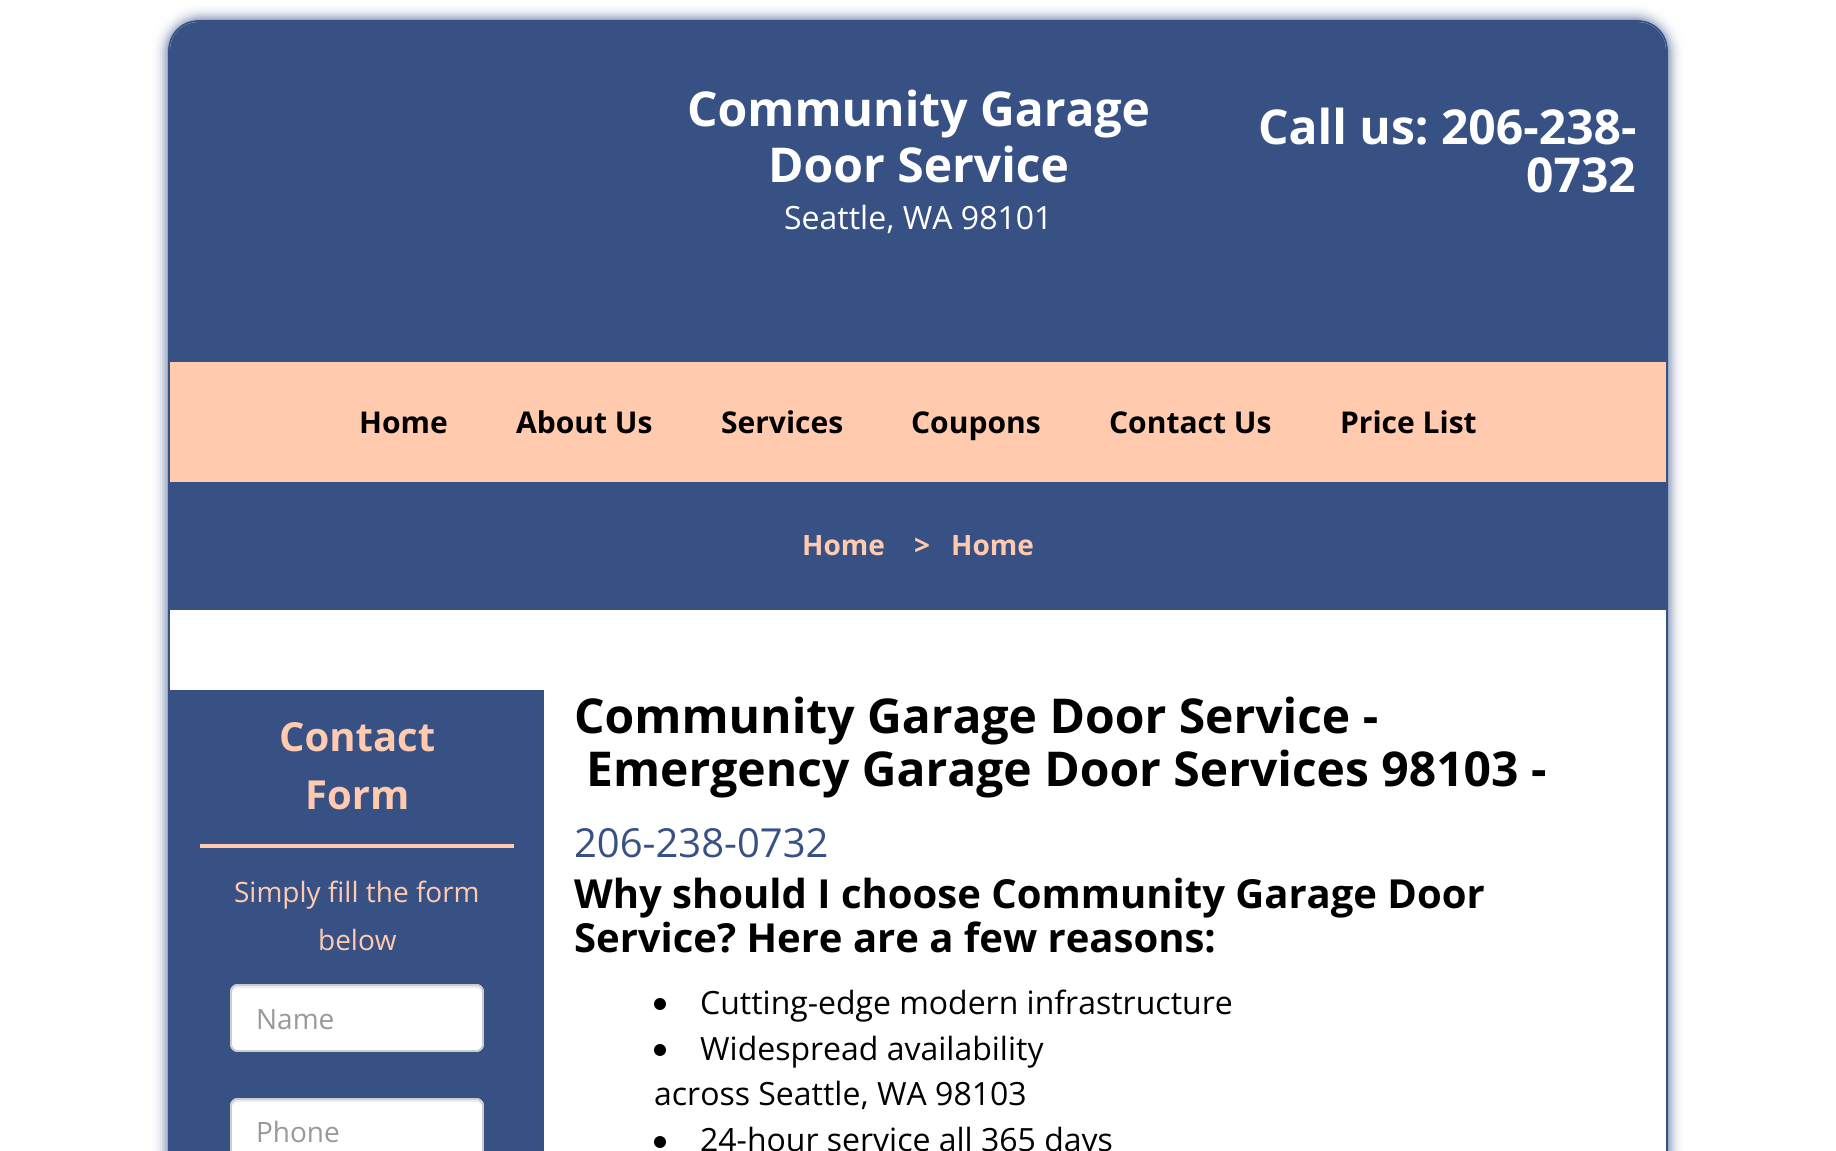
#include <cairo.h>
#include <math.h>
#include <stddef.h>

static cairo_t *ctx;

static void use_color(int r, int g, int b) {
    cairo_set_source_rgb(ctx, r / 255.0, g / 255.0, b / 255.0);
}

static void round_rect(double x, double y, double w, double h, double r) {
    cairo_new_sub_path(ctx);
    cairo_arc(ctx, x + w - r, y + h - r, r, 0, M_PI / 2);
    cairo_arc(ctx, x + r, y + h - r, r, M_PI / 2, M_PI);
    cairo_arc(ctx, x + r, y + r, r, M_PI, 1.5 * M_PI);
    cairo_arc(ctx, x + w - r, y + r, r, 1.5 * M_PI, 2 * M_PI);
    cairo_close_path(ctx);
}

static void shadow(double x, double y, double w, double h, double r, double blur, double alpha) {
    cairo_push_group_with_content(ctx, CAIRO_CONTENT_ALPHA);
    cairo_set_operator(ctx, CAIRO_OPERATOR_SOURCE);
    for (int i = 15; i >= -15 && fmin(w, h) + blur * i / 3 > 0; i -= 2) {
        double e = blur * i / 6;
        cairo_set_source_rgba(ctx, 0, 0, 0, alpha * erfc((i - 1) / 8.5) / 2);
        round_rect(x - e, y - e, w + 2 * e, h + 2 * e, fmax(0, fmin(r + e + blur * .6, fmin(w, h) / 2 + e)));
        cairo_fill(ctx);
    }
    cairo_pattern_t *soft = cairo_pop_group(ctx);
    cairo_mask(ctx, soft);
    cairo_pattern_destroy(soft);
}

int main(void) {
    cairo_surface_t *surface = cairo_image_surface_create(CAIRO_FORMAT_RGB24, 1836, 1151);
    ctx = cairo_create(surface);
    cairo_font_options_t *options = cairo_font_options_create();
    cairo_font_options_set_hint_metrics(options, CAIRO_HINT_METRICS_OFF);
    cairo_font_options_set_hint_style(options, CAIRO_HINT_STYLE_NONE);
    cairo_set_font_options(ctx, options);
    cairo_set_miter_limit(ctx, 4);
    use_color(255, 255, 255);
    cairo_paint(ctx);
    cairo_save(ctx);
    cairo_set_fill_rule(ctx, CAIRO_FILL_RULE_EVEN_ODD);
    cairo_new_path(ctx);
    cairo_move_to(ctx, 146, 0);
    cairo_line_to(ctx, 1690, 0);
    cairo_line_to(ctx, 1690, 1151);
    cairo_line_to(ctx, 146, 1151);
    cairo_close_path(ctx);
    cairo_move_to(ctx, 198, 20);
    cairo_line_to(ctx, 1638, 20);
    cairo_curve_to(ctx, 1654.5, 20, 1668, 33.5, 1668, 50);
    cairo_line_to(ctx, 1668, 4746);
    cairo_line_to(ctx, 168, 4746);
    cairo_line_to(ctx, 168, 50);
    cairo_curve_to(ctx, 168, 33.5, 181.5, 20, 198, 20);
    cairo_close_path(ctx);
    cairo_clip(ctx);
    use_color(55, 81, 133);
    shadow(168, 20, 1500, 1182, 30, 7, 1);
    cairo_restore(ctx);
    cairo_new_path(ctx);
    cairo_move_to(ctx, 198, 21);
    cairo_line_to(ctx, 1638, 21);
    cairo_curve_to(ctx, 1654, 21, 1667, 34, 1667, 50);
    cairo_line_to(ctx, 1667, 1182);
    cairo_line_to(ctx, 169, 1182);
    cairo_line_to(ctx, 169, 50);
    cairo_curve_to(ctx, 169, 34, 182, 21, 198, 21);
    cairo_close_path(ctx);
    use_color(55, 81, 133);
    cairo_stroke(ctx);
    cairo_new_path(ctx);
    cairo_move_to(ctx, 198, 22);
    cairo_line_to(ctx, 1638, 22);
    cairo_curve_to(ctx, 1653.5, 22, 1666, 34.5, 1666, 50);
    cairo_line_to(ctx, 1666, 362);
    cairo_line_to(ctx, 170, 362);
    cairo_line_to(ctx, 170, 50);
    cairo_curve_to(ctx, 170, 34.5, 182.5, 22, 198, 22);
    cairo_close_path(ctx);
    cairo_fill(ctx);
    cairo_select_font_face(ctx, "Open Sans", CAIRO_FONT_SLANT_NORMAL, CAIRO_FONT_WEIGHT_BOLD);
    cairo_set_font_size(ctx, 48);
    use_color(255, 255, 255);
    cairo_move_to(ctx, 687, 126);
    cairo_show_text(ctx, "Community Garage");
    cairo_move_to(ctx, 768, 182);
    cairo_show_text(ctx, "Door Service");
    cairo_select_font_face(ctx, "Open Sans", CAIRO_FONT_SLANT_NORMAL, CAIRO_FONT_WEIGHT_NORMAL);
    cairo_set_font_size(ctx, 32);
    cairo_move_to(ctx, 784, 229);
    cairo_show_text(ctx, "Seattle, WA 98101");
    cairo_select_font_face(ctx, "Open Sans", CAIRO_FONT_SLANT_NORMAL, CAIRO_FONT_WEIGHT_BOLD);
    cairo_set_font_size(ctx, 48);
    cairo_move_to(ctx, 1258, 144);
    cairo_show_text(ctx, "Call us: 206-238-");
    cairo_move_to(ctx, 1526, 192);
    cairo_show_text(ctx, "0732");
    use_color(255, 202, 173);
    cairo_rectangle(ctx, 170, 362, 1496, 120);
    cairo_fill(ctx);
    cairo_set_font_size(ctx, 30);
    use_color(0, 0, 0);
    cairo_move_to(ctx, 359, 433);
    cairo_show_text(ctx, "Home");
    cairo_move_to(ctx, 516, 433);
    cairo_show_text(ctx, "About Us");
    cairo_move_to(ctx, 721, 433);
    cairo_show_text(ctx, "Services");
    cairo_move_to(ctx, 911, 433);
    cairo_show_text(ctx, "Coupons");
    cairo_move_to(ctx, 1109, 433);
    cairo_show_text(ctx, "Contact Us");
    cairo_move_to(ctx, 1340, 433);
    cairo_show_text(ctx, "Price List");
    use_color(55, 81, 133);
    cairo_rectangle(ctx, 170, 482, 1496, 128);
    cairo_fill(ctx);
    cairo_set_font_size(ctx, 28);
    use_color(255, 202, 173);
    cairo_move_to(ctx, 802, 555);
    cairo_show_text(ctx, "Home");
    cairo_move_to(ctx, 914, 555);
    cairo_show_text(ctx, ">");
    cairo_move_to(ctx, 951, 555);
    cairo_show_text(ctx, "Home");
    use_color(55, 81, 133);
    cairo_rectangle(ctx, 170, 690, 374, 461);
    cairo_fill(ctx);
    use_color(255, 202, 173);
    cairo_rectangle(ctx, 200, 844, 314, 4);
    cairo_fill(ctx);
    cairo_set_font_size(ctx, 40);
    cairo_move_to(ctx, 279, 751);
    cairo_show_text(ctx, "Contact");
    cairo_move_to(ctx, 305, 809);
    cairo_show_text(ctx, "Form");
    cairo_select_font_face(ctx, "Open Sans", CAIRO_FONT_SLANT_NORMAL, CAIRO_FONT_WEIGHT_NORMAL);
    cairo_set_font_size(ctx, 28);
    cairo_move_to(ctx, 234, 902);
    cairo_show_text(ctx, "Simply fill the form");
    cairo_move_to(ctx, 318, 950);
    cairo_show_text(ctx, "below");
    use_color(255, 255, 255);
    round_rect(230, 984, 254, 68, 8);
    cairo_fill(ctx);
    use_color(236, 236, 236);
    cairo_new_path(ctx);
    cairo_move_to(ctx, 238, 988);
    cairo_line_to(ctx, 476, 988);
    cairo_curve_to(ctx, 479, 988, 482, 991, 482, 994);
    cairo_curve_to(ctx, 482, 991, 481, 987, 477, 986);
    cairo_line_to(ctx, 238, 986);
    cairo_curve_to(ctx, 233, 986, 232, 990, 232, 994);
    cairo_curve_to(ctx, 232, 991, 235, 988, 238, 988);
    cairo_close_path(ctx);
    cairo_fill(ctx);
    round_rect(231, 985, 252, 66, 7);
    use_color(204, 204, 204);
    cairo_stroke(ctx);
    use_color(153, 153, 153);
    cairo_move_to(ctx, 256, 1029);
    cairo_show_text(ctx, "Name");
    use_color(255, 255, 255);
    round_rect(230, 1098, 254, 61, 8);
    cairo_fill(ctx);
    use_color(236, 236, 236);
    cairo_new_path(ctx);
    cairo_move_to(ctx, 238, 1102);
    cairo_line_to(ctx, 476, 1102);
    cairo_curve_to(ctx, 479, 1102, 482, 1105, 482, 1108);
    cairo_curve_to(ctx, 482, 1105, 481, 1101, 477, 1100);
    cairo_line_to(ctx, 238, 1100);
    cairo_curve_to(ctx, 233, 1100, 232, 1104, 232, 1108);
    cairo_curve_to(ctx, 232, 1105, 235, 1102, 238, 1102);
    cairo_close_path(ctx);
    cairo_fill(ctx);
    round_rect(231, 1099, 252, 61, 7);
    use_color(204, 204, 204);
    cairo_stroke(ctx);
    use_color(153, 153, 153);
    cairo_move_to(ctx, 256, 1142);
    cairo_show_text(ctx, "Phone");
    cairo_select_font_face(ctx, "Open Sans", CAIRO_FONT_SLANT_NORMAL, CAIRO_FONT_WEIGHT_BOLD);
    cairo_set_font_size(ctx, 48);
    use_color(0, 0, 0);
    cairo_move_to(ctx, 574, 733);
    cairo_show_text(ctx, "Community Garage Door Service -");
    cairo_move_to(ctx, 586, 786);
    cairo_show_text(ctx, "Emergency Garage Door Services 98103 -");
    cairo_select_font_face(ctx, "Open Sans", CAIRO_FONT_SLANT_NORMAL, CAIRO_FONT_WEIGHT_NORMAL);
    cairo_set_font_size(ctx, 40);
    use_color(55, 81, 133);
    cairo_move_to(ctx, 574, 857);
    cairo_show_text(ctx, "206-238-0732");
    cairo_select_font_face(ctx, "Open Sans", CAIRO_FONT_SLANT_NORMAL, CAIRO_FONT_WEIGHT_BOLD);
    use_color(0, 0, 0);
    cairo_move_to(ctx, 574, 908);
    cairo_show_text(ctx, "Why should I choose Community Garage Door");
    cairo_move_to(ctx, 574, 952);
    cairo_show_text(ctx, "Service? Here are a few reasons:");
    cairo_new_path(ctx);
    cairo_arc(ctx, 660, 1004, 6, 0, 2 * M_PI);
    cairo_fill(ctx);
    cairo_select_font_face(ctx, "Open Sans", CAIRO_FONT_SLANT_NORMAL, CAIRO_FONT_WEIGHT_NORMAL);
    cairo_set_font_size(ctx, 32);
    cairo_move_to(ctx, 700, 1014);
    cairo_show_text(ctx, "Cutting-edge modern infrastructure");
    cairo_new_path(ctx);
    cairo_arc(ctx, 660, 1050, 6, 0, 2 * M_PI);
    cairo_fill(ctx);
    cairo_move_to(ctx, 700, 1060);
    cairo_show_text(ctx, "Widespread availability");
    cairo_move_to(ctx, 654, 1105);
    cairo_show_text(ctx, "across Seattle, WA 98103");
    cairo_new_path(ctx);
    cairo_arc(ctx, 660, 1142, 6, 0, 2 * M_PI);
    cairo_fill(ctx);
    cairo_move_to(ctx, 700, 1151);
    cairo_show_text(ctx, "24-hour service all 365 days");
    cairo_surface_write_to_png(surface, "result.png");
    cairo_font_options_destroy(options);
    cairo_destroy(ctx);
    cairo_surface_destroy(surface);
    return 0;
}
